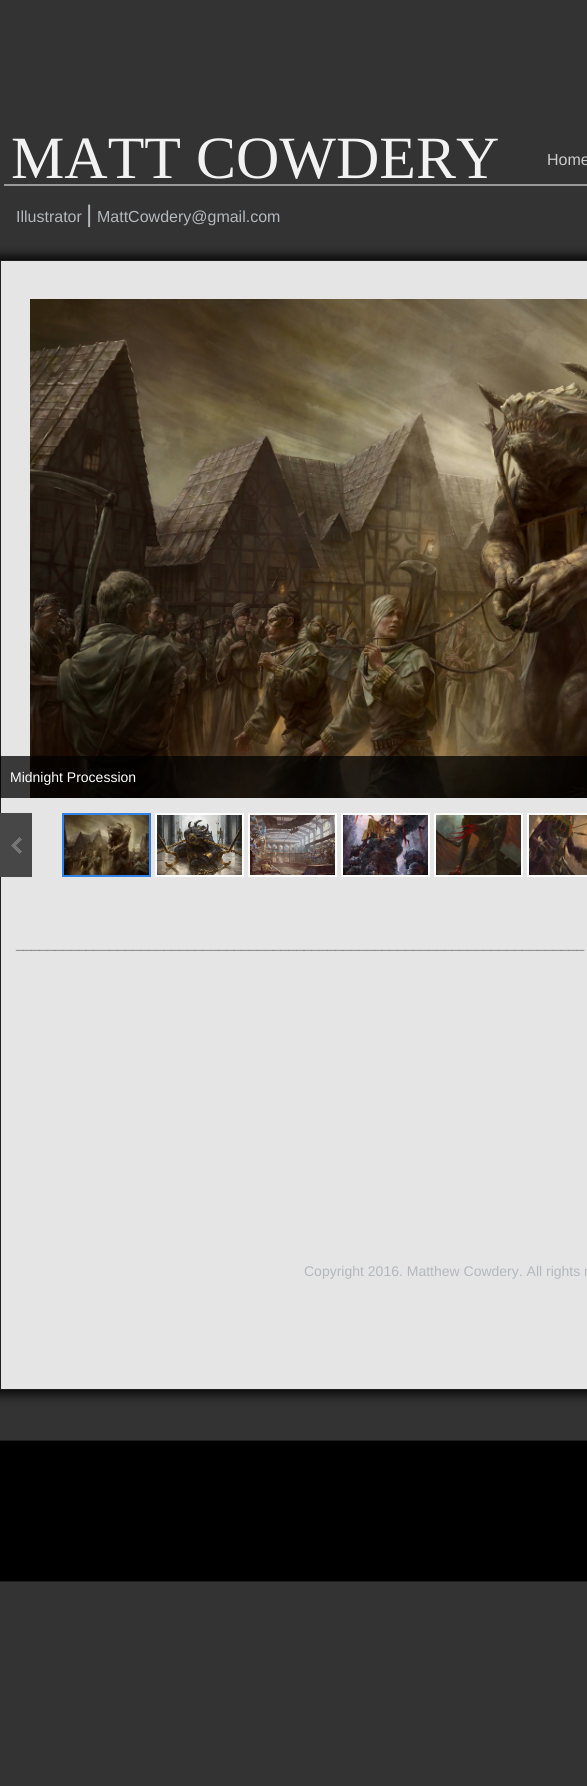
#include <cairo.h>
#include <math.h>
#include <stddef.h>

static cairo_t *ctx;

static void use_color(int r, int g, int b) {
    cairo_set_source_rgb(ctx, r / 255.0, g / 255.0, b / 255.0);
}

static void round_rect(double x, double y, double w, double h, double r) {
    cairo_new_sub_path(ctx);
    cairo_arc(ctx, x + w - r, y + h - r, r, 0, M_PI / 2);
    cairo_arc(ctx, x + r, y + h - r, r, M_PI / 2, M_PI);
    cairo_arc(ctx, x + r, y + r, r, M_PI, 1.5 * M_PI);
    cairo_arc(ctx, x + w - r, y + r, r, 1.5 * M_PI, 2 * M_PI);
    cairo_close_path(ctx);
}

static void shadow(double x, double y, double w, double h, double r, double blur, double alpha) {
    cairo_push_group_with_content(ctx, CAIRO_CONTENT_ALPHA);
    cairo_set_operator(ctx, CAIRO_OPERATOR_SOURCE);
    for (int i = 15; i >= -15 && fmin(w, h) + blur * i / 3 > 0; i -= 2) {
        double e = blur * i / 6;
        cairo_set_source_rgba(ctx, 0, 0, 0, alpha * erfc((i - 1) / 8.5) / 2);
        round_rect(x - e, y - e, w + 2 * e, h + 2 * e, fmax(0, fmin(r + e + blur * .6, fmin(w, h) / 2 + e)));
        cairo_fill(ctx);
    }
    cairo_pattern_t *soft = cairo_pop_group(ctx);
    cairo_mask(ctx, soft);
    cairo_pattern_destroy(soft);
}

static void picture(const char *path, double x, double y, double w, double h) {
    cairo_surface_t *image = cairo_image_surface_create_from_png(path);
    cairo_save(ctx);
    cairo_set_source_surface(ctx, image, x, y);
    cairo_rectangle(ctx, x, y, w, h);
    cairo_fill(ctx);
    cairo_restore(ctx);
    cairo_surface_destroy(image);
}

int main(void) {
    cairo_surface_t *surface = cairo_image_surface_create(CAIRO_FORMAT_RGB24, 587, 1786);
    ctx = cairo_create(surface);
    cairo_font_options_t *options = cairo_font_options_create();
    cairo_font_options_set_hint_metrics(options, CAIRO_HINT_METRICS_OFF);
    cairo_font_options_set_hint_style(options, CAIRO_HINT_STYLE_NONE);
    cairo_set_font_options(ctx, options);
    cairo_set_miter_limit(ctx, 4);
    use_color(51, 51, 51);
    cairo_paint(ctx);
    use_color(0, 0, 0);
    shadow(-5, 255, 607, 1140, 0, 5, 0.8);
    use_color(229, 229, 229);
    cairo_rectangle(ctx, 0.5, 260.5, 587, 1129);
    cairo_fill_preserve(ctx);
    use_color(31, 31, 31);
    cairo_set_line_width(ctx, 1);
    cairo_stroke(ctx);
    cairo_select_font_face(ctx, "Liberation Serif", CAIRO_FONT_SLANT_NORMAL, CAIRO_FONT_WEIGHT_NORMAL);
    cairo_set_font_size(ctx, 60);
    use_color(242, 242, 242);
    cairo_move_to(ctx, 11, 178);
    cairo_show_text(ctx, "MATT COWDERY");
    cairo_select_font_face(ctx, "Liberation Sans", CAIRO_FONT_SLANT_NORMAL, CAIRO_FONT_WEIGHT_NORMAL);
    cairo_set_font_size(ctx, 16);
    use_color(204, 204, 204);
    cairo_move_to(ctx, 547, 165);
    cairo_show_text(ctx, "Home");
    use_color(153, 153, 153);
    cairo_rectangle(ctx, 4, 184, 583, 2);
    cairo_fill(ctx);
    use_color(179, 184, 188);
    cairo_move_to(ctx, 16, 222);
    cairo_show_text(ctx, "Illustrator");
    cairo_set_font_size(ctx, 24);
    cairo_move_to(ctx, 86, 222);
    cairo_show_text(ctx, "|");
    cairo_set_font_size(ctx, 16);
    cairo_move_to(ctx, 97, 222);
    cairo_show_text(ctx, "MattCowdery@gmail.com");
    picture("img1.png", 30, 299, 557, 499);
    cairo_set_source_rgba(ctx, 0, 0, 0, 0.75);
    cairo_rectangle(ctx, 0, 756, 587, 42);
    cairo_fill(ctx);
    cairo_set_font_size(ctx, 14);
    use_color(255, 255, 255);
    cairo_move_to(ctx, 10, 782);
    cairo_show_text(ctx, "Midnight Procession");
    use_color(71, 71, 71);
    cairo_rectangle(ctx, 0, 813, 32, 64);
    cairo_fill(ctx);
    picture("img2.png", 11, 837, 11, 17);
    use_color(49, 130, 230);
    cairo_rectangle(ctx, 62, 813, 89, 64);
    cairo_fill(ctx);
    picture("img3.png", 64, 815, 85, 60);
    cairo_rectangle(ctx, 156, 814, 87, 62);
    use_color(255, 255, 255);
    cairo_set_line_width(ctx, 2);
    cairo_stroke(ctx);
    picture("img4.png", 157, 815, 85, 60);
    cairo_rectangle(ctx, 249, 814, 87, 62);
    cairo_stroke(ctx);
    picture("img5.png", 250, 815, 85, 60);
    cairo_rectangle(ctx, 342, 814, 87, 62);
    cairo_stroke(ctx);
    picture("img6.png", 343, 815, 85, 60);
    cairo_rectangle(ctx, 435, 814, 87, 62);
    cairo_stroke(ctx);
    picture("img7.png", 436, 815, 85, 60);
    cairo_rectangle(ctx, 528, 814, 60, 62);
    cairo_stroke(ctx);
    picture("img8.png", 529, 815, 58, 60);
    use_color(128, 128, 128);
    cairo_move_to(ctx, 16, 948);
    cairo_show_text(ctx, "_________________________________________________________________________");
    use_color(179, 184, 188);
    cairo_move_to(ctx, 304, 1276);
    cairo_show_text(ctx, "Copyright 2016. Matthew Cowdery. All rights r");
    use_color(0, 0, 0);
    cairo_rectangle(ctx, 0, 1441, 587, 140);
    cairo_fill(ctx);
    use_color(31, 31, 31);
    cairo_rectangle(ctx, 0, 1440, 587, 1);
    cairo_fill(ctx);
    cairo_rectangle(ctx, 0, 1581, 587, 1);
    cairo_fill(ctx);
    cairo_surface_write_to_png(surface, "result.png");
    cairo_font_options_destroy(options);
    cairo_destroy(ctx);
    cairo_surface_destroy(surface);
    return 0;
}
